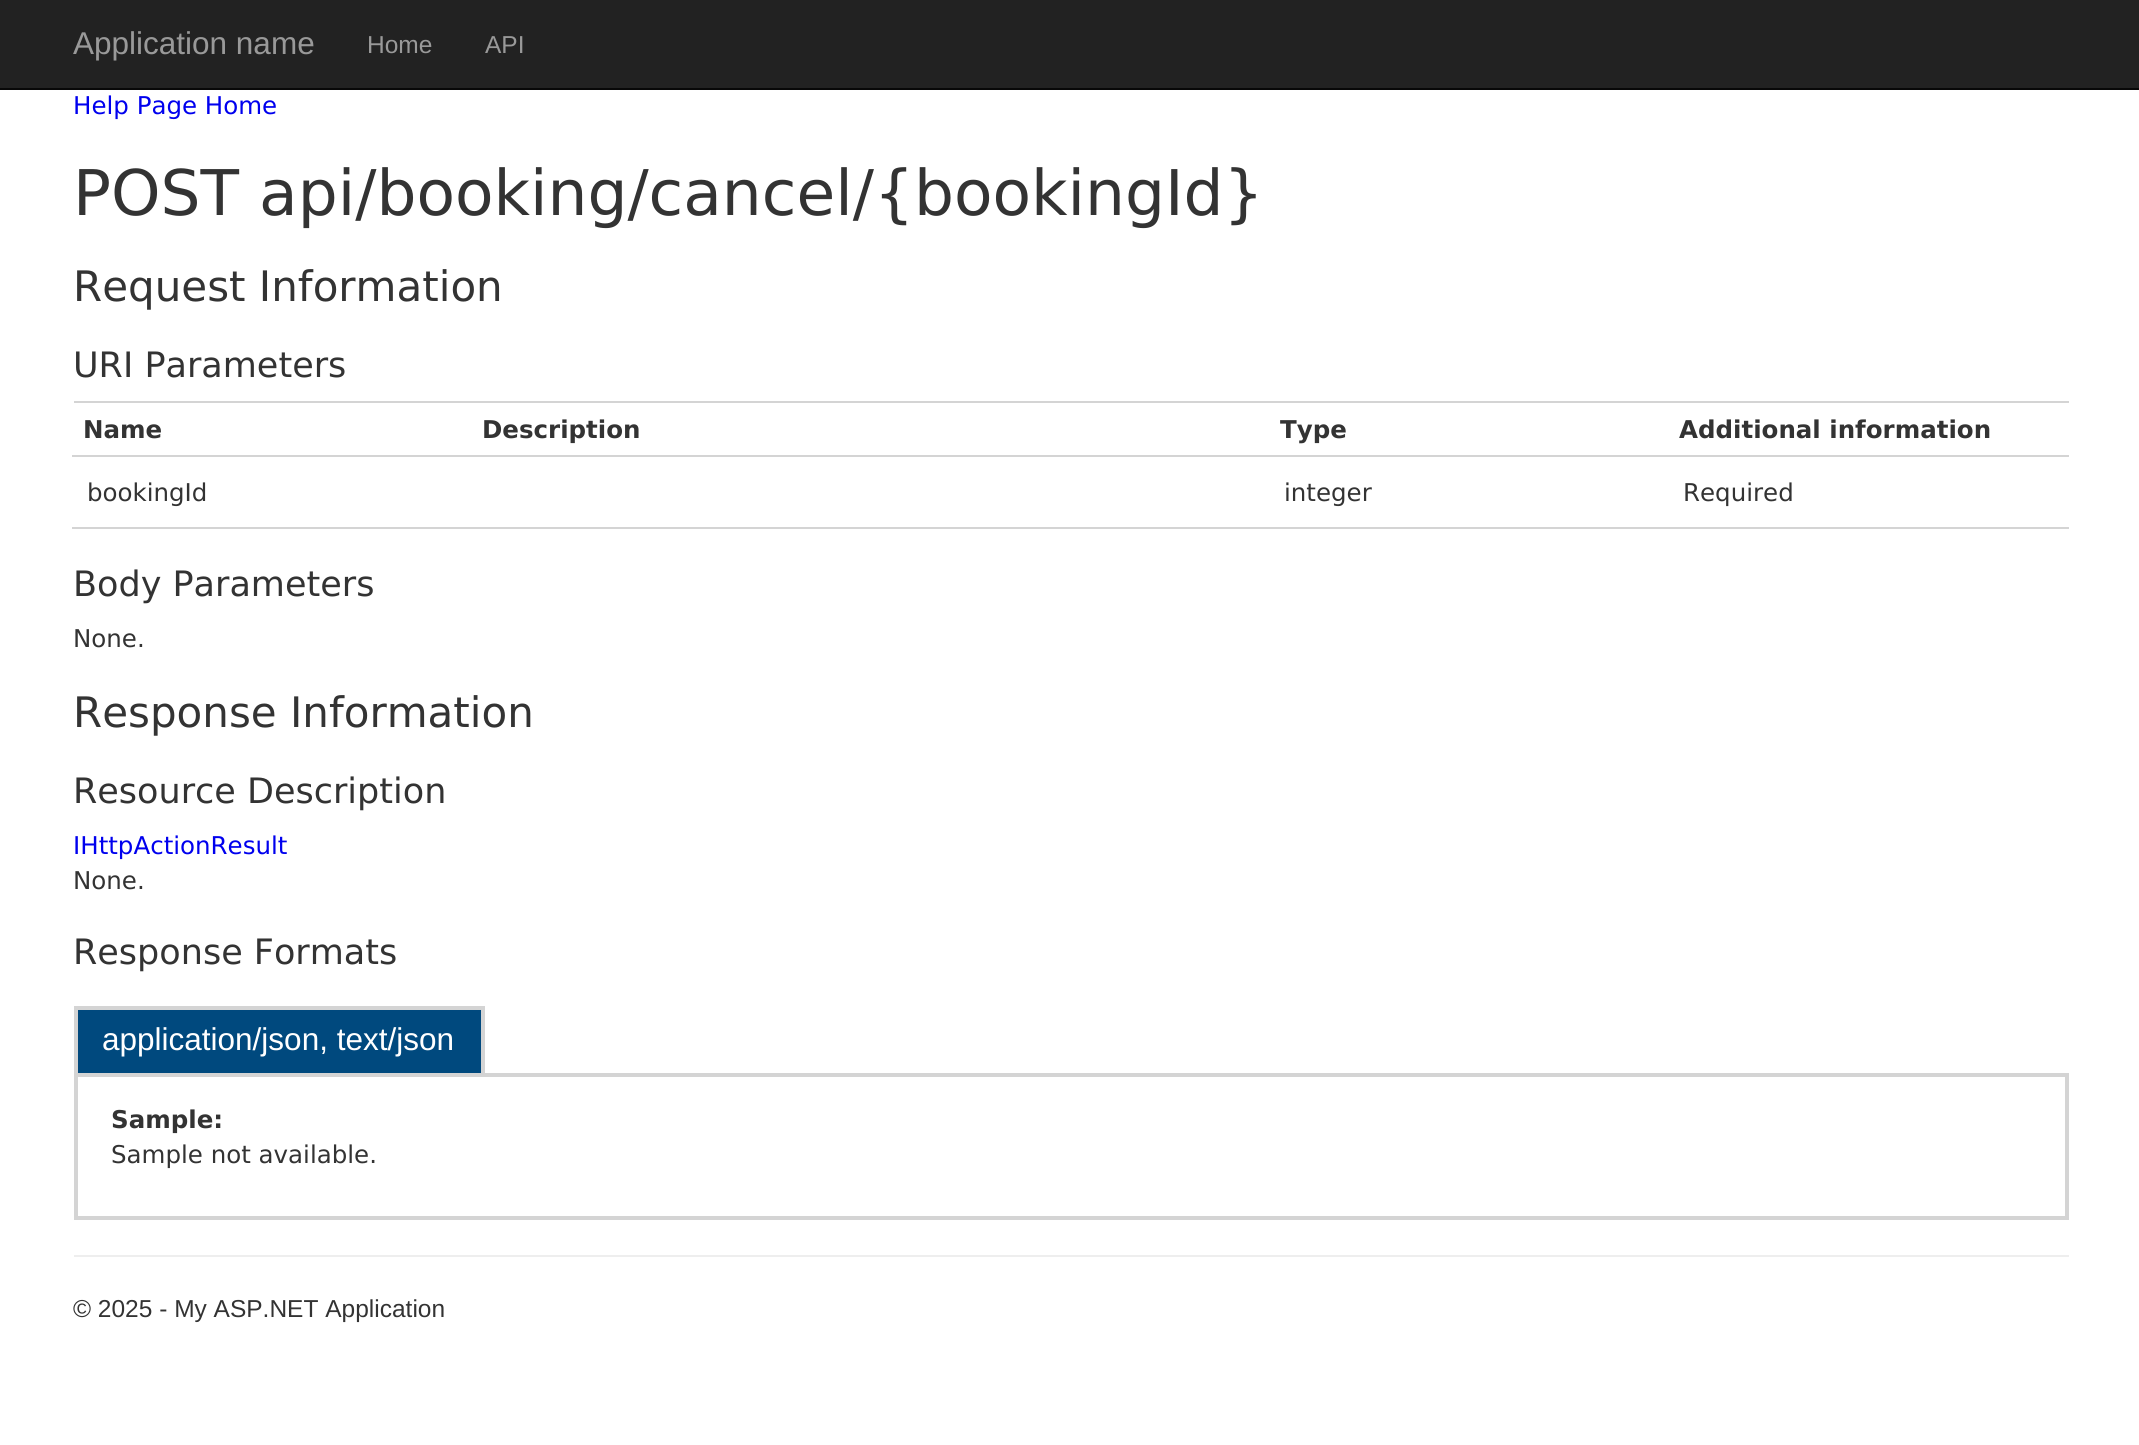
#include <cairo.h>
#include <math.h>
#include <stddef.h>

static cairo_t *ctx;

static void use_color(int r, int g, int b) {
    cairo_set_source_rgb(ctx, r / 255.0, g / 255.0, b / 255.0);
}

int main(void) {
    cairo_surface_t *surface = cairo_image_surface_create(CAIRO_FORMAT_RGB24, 2139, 1445);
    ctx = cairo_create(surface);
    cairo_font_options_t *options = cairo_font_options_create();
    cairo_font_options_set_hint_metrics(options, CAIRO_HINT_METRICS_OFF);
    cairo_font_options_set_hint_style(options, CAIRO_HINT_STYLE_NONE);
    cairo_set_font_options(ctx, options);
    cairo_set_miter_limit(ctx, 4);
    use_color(255, 255, 255);
    cairo_paint(ctx);
    use_color(34, 34, 34);
    cairo_rectangle(ctx, 0, 0, 2139, 88);
    cairo_fill(ctx);
    use_color(8, 8, 8);
    cairo_rectangle(ctx, 0, 88, 2139, 2);
    cairo_fill(ctx);
    cairo_select_font_face(ctx, "Liberation Sans", CAIRO_FONT_SLANT_NORMAL, CAIRO_FONT_WEIGHT_NORMAL);
    cairo_set_font_size(ctx, 31.5);
    use_color(153, 153, 153);
    cairo_move_to(ctx, 73, 54);
    cairo_show_text(ctx, "Application name");
    cairo_set_font_size(ctx, 24.5);
    cairo_move_to(ctx, 367, 53);
    cairo_show_text(ctx, "Home");
    cairo_move_to(ctx, 485, 53);
    cairo_show_text(ctx, "API");
    cairo_select_font_face(ctx, "DejaVu Sans", CAIRO_FONT_SLANT_NORMAL, CAIRO_FONT_WEIGHT_NORMAL);
    use_color(0, 0, 238);
    cairo_move_to(ctx, 73, 114);
    cairo_show_text(ctx, "Help Page Home");
    cairo_set_font_size(ctx, 63);
    use_color(51, 51, 51);
    cairo_move_to(ctx, 73, 215);
    cairo_show_text(ctx, "POST api/booking/cancel/{bookingId}");
    cairo_set_font_size(ctx, 42);
    cairo_move_to(ctx, 73, 301);
    cairo_show_text(ctx, "Request Information");
    cairo_set_font_size(ctx, 35);
    cairo_move_to(ctx, 73, 377);
    cairo_show_text(ctx, "URI Parameters");
    use_color(212, 212, 212);
    cairo_rectangle(ctx, 74, 401, 1995, 2);
    cairo_fill(ctx);
    cairo_select_font_face(ctx, "DejaVu Sans", CAIRO_FONT_SLANT_NORMAL, CAIRO_FONT_WEIGHT_BOLD);
    cairo_set_font_size(ctx, 24.5);
    use_color(51, 51, 51);
    cairo_move_to(ctx, 83, 438);
    cairo_show_text(ctx, "Name");
    cairo_move_to(ctx, 482, 438);
    cairo_show_text(ctx, "Description");
    cairo_move_to(ctx, 1280, 438);
    cairo_show_text(ctx, "Type");
    use_color(212, 212, 212);
    cairo_rectangle(ctx, 72, 455, 1997, 2);
    cairo_fill(ctx);
    use_color(51, 51, 51);
    cairo_move_to(ctx, 1679, 438);
    cairo_show_text(ctx, "Additional information");
    cairo_select_font_face(ctx, "DejaVu Sans", CAIRO_FONT_SLANT_NORMAL, CAIRO_FONT_WEIGHT_NORMAL);
    cairo_move_to(ctx, 87, 501);
    cairo_show_text(ctx, "bookingId");
    cairo_move_to(ctx, 1284, 501);
    cairo_show_text(ctx, "integer");
    use_color(212, 212, 212);
    cairo_rectangle(ctx, 72, 527, 1997, 2);
    cairo_fill(ctx);
    use_color(51, 51, 51);
    cairo_move_to(ctx, 1683, 501);
    cairo_show_text(ctx, "Required");
    cairo_set_font_size(ctx, 35);
    cairo_move_to(ctx, 73, 596);
    cairo_show_text(ctx, "Body Parameters");
    cairo_set_font_size(ctx, 24.5);
    cairo_move_to(ctx, 73, 647);
    cairo_show_text(ctx, "None.");
    cairo_set_font_size(ctx, 42);
    cairo_move_to(ctx, 73, 727);
    cairo_show_text(ctx, "Response Information");
    cairo_set_font_size(ctx, 35);
    cairo_move_to(ctx, 73, 803);
    cairo_show_text(ctx, "Resource Description");
    cairo_set_font_size(ctx, 24.5);
    use_color(0, 0, 238);
    cairo_move_to(ctx, 73, 854);
    cairo_show_text(ctx, "IHttpActionResult");
    use_color(51, 51, 51);
    cairo_move_to(ctx, 73, 889);
    cairo_show_text(ctx, "None.");
    cairo_set_font_size(ctx, 35);
    cairo_move_to(ctx, 73, 964);
    cairo_show_text(ctx, "Response Formats");
    use_color(0, 73, 126);
    cairo_rectangle(ctx, 78, 1010, 403, 63);
    cairo_fill(ctx);
    use_color(212, 212, 212);
    cairo_rectangle(ctx, 74, 1006, 411, 4);
    cairo_fill(ctx);
    cairo_rectangle(ctx, 481, 1006, 4, 67);
    cairo_fill(ctx);
    cairo_rectangle(ctx, 74, 1006, 4, 67);
    cairo_fill(ctx);
    cairo_select_font_face(ctx, "Liberation Sans", CAIRO_FONT_SLANT_NORMAL, CAIRO_FONT_WEIGHT_NORMAL);
    cairo_set_font_size(ctx, 31.5);
    use_color(255, 255, 255);
    cairo_move_to(ctx, 102, 1050);
    cairo_show_text(ctx, "application/json, text/json");
    cairo_rectangle(ctx, 76, 1075, 1991, 143);
    use_color(212, 212, 212);
    cairo_set_line_width(ctx, 4);
    cairo_stroke(ctx);
    cairo_select_font_face(ctx, "DejaVu Sans", CAIRO_FONT_SLANT_NORMAL, CAIRO_FONT_WEIGHT_BOLD);
    cairo_set_font_size(ctx, 24.5);
    use_color(51, 51, 51);
    cairo_move_to(ctx, 111, 1128);
    cairo_show_text(ctx, "Sample:");
    cairo_select_font_face(ctx, "DejaVu Sans", CAIRO_FONT_SLANT_NORMAL, CAIRO_FONT_WEIGHT_NORMAL);
    cairo_move_to(ctx, 111, 1163);
    cairo_show_text(ctx, "Sample not available.");
    use_color(238, 238, 238);
    cairo_rectangle(ctx, 74, 1255, 1995, 2);
    cairo_fill(ctx);
    cairo_select_font_face(ctx, "Liberation Sans", CAIRO_FONT_SLANT_NORMAL, CAIRO_FONT_WEIGHT_NORMAL);
    use_color(51, 51, 51);
    cairo_move_to(ctx, 73, 1317);
    cairo_show_text(ctx, "© 2025 - My ASP.NET Application");
    cairo_surface_write_to_png(surface, "result.png");
    cairo_font_options_destroy(options);
    cairo_destroy(ctx);
    cairo_surface_destroy(surface);
    return 0;
}
